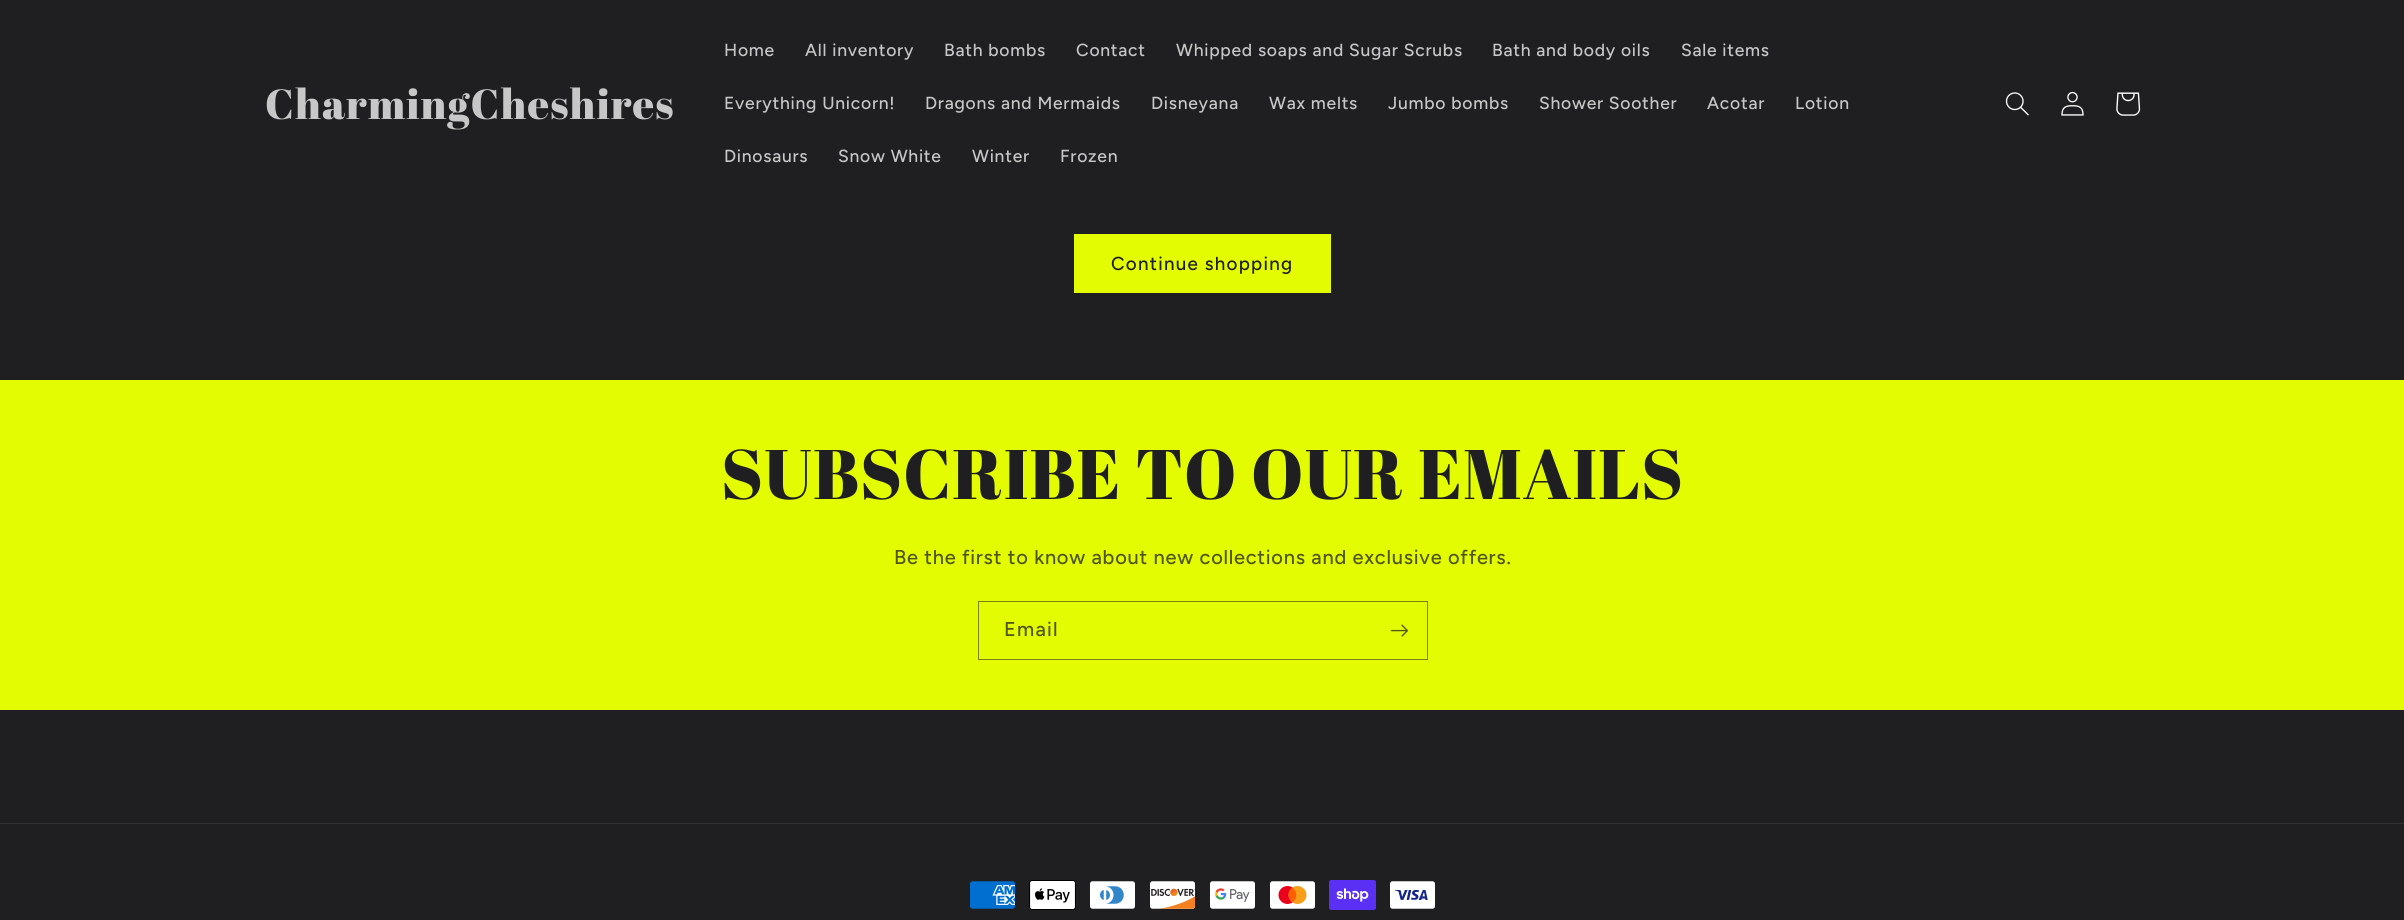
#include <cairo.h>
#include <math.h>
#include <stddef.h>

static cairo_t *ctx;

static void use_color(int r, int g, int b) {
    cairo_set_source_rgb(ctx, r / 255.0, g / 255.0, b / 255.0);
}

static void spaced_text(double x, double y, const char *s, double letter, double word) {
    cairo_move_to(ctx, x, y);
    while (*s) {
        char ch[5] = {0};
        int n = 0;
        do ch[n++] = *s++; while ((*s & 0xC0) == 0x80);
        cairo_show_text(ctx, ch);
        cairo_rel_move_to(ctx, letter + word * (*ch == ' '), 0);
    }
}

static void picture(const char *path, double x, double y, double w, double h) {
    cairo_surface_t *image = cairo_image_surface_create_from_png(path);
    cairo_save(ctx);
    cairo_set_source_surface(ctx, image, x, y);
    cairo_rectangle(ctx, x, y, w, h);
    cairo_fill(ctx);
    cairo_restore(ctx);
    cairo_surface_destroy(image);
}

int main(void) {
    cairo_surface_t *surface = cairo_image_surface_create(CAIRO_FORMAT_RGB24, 2404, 920);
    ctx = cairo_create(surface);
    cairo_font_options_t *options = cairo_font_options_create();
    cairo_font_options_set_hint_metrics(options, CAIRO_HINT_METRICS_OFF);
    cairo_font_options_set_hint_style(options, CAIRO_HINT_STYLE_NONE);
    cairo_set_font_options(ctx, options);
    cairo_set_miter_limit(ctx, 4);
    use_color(31, 31, 33);
    cairo_paint(ctx);
    cairo_select_font_face(ctx, "Abril Fatface", CAIRO_FONT_SLANT_NORMAL, CAIRO_FONT_WEIGHT_NORMAL);
    cairo_set_font_size(ctx, 42);
    use_color(199, 199, 200);
    spaced_text(265, 119, "CharmingCheshires", 1.05, 0);
    cairo_select_font_face(ctx, "Figtree Medium", CAIRO_FONT_SLANT_NORMAL, CAIRO_FONT_WEIGHT_NORMAL);
    cairo_set_font_size(ctx, 17.5);
    spaced_text(724, 56, "Home", 0.75, 0);
    spaced_text(805, 56, "All inventory", 0.75, 0);
    spaced_text(944, 56, "Bath bombs", 0.75, 0);
    spaced_text(1076, 56, "Contact", 0.75, 0);
    spaced_text(1176, 56, "Whipped soaps and Sugar Scrubs", 0.75, 0);
    spaced_text(1492, 56, "Bath and body oils", 0.75, 0);
    spaced_text(1681, 56, "Sale items", 0.75, 0);
    spaced_text(724, 109, "Everything Unicorn!", 0.75, 0);
    spaced_text(925, 109, "Dragons and Mermaids", 0.75, 0);
    spaced_text(1151, 109, "Disneyana", 0.75, 0);
    spaced_text(1269, 109, "Wax melts", 0.75, 0);
    spaced_text(1388, 109, "Jumbo bombs", 0.75, 0);
    spaced_text(1539, 109, "Shower Soother", 0.75, 0);
    spaced_text(1707, 109, "Acotar", 0.75, 0);
    spaced_text(1795, 109, "Lotion", 0.75, 0);
    spaced_text(724, 162, "Dinosaurs", 0.75, 0);
    spaced_text(838, 162, "Snow White", 0.75, 0);
    spaced_text(972, 162, "Winter", 0.75, 0);
    spaced_text(1060, 162, "Frozen", 0.75, 0);
    picture("img1.png", 2005, 92, 24, 24);
    picture("img2.png", 2061, 91, 23, 25);
    picture("img3.png", 2116, 92, 25, 24);
    use_color(227, 252, 2);
    cairo_rectangle(ctx, 1074, 234, 257, 59);
    cairo_fill(ctx);
    cairo_set_font_size(ctx, 18.75);
    use_color(31, 31, 33);
    spaced_text(1111, 270, "Continue shopping", 1.25, 0);
    use_color(227, 252, 2);
    cairo_rectangle(ctx, 0, 380, 2404, 330);
    cairo_fill(ctx);
    cairo_select_font_face(ctx, "Abril Fatface", CAIRO_FONT_SLANT_NORMAL, CAIRO_FONT_WEIGHT_NORMAL);
    cairo_set_font_size(ctx, 70);
    use_color(31, 31, 33);
    spaced_text(721, 499, "SUBSCRIBE TO OUR EMAILS", 1.05, 0);
    cairo_select_font_face(ctx, "Figtree Medium", CAIRO_FONT_SLANT_NORMAL, CAIRO_FONT_WEIGHT_NORMAL);
    cairo_set_font_size(ctx, 20);
    use_color(80, 86, 25);
    spaced_text(894, 564, "Be the first to know about new collections and exclusive offers.", 0.75, 0);
    cairo_rectangle(ctx, 978.5, 601.5, 449, 58);
    use_color(119, 130, 19);
    cairo_set_line_width(ctx, 1);
    cairo_stroke(ctx);
    use_color(80, 86, 25);
    spaced_text(1004, 636, "Email", 1.25, 0);
    picture("img4.png", 1390, 624, 18, 13);
    use_color(49, 49, 51);
    cairo_rectangle(ctx, 0, 823, 2404, 1);
    cairo_fill(ctx);
    picture("img5.png", 970, 881, 45, 28);
    picture("img6.png", 1029, 880, 47, 30);
    picture("img7.png", 1090, 881, 45, 28);
    picture("img8.png", 1150, 881, 45, 28);
    picture("img9.png", 1210, 881, 45, 28);
    picture("img10.png", 1270, 881, 45, 28);
    picture("img11.png", 1329, 880, 47, 30);
    picture("img12.png", 1390, 881, 45, 28);
    cairo_surface_write_to_png(surface, "result.png");
    cairo_font_options_destroy(options);
    cairo_destroy(ctx);
    cairo_surface_destroy(surface);
    return 0;
}
